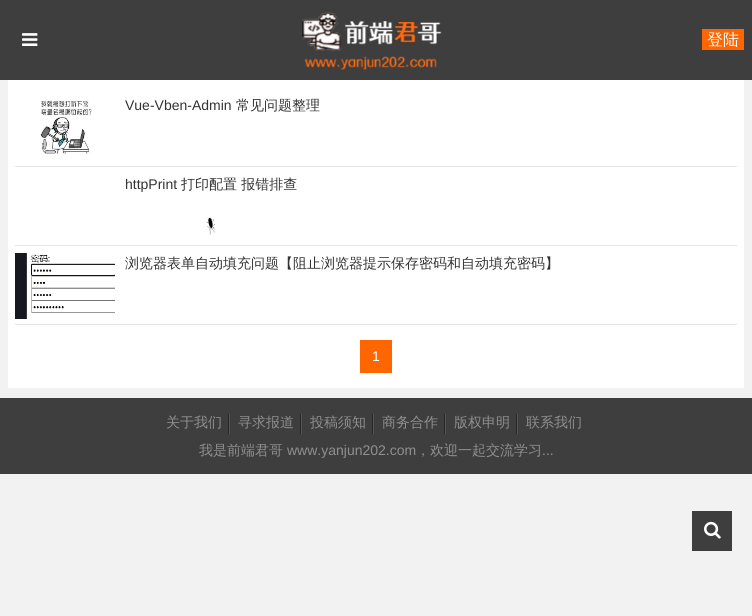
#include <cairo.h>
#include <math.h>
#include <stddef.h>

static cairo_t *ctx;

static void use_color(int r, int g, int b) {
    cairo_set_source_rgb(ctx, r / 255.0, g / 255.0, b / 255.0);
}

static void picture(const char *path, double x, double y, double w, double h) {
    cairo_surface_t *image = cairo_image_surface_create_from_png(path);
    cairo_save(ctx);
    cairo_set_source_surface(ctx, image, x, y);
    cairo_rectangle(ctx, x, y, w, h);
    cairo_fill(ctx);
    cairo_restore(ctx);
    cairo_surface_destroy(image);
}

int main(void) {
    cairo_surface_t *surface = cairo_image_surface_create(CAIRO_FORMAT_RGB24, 752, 616);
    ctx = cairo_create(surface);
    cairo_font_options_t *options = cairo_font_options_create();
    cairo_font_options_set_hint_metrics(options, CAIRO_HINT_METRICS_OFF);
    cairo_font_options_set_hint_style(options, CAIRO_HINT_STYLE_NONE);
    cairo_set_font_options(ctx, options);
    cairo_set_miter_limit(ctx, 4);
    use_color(242, 242, 242);
    cairo_paint(ctx);
    use_color(62, 62, 62);
    cairo_rectangle(ctx, 0, 0, 752, 80);
    cairo_fill(ctx);
    picture("img1.png", 22, 33, 16, 13);
    picture("img2.png", 302, 12, 140, 58);
    use_color(255, 102, 0);
    cairo_rectangle(ctx, 702, 29, 42, 21);
    cairo_fill(ctx);
    cairo_select_font_face(ctx, "WenQuanYi Zen Hei Medium", CAIRO_FONT_SLANT_NORMAL, CAIRO_FONT_WEIGHT_NORMAL);
    cairo_set_font_size(ctx, 16);
    use_color(255, 255, 255);
    cairo_move_to(ctx, 707, 45);
    cairo_show_text(ctx, "登陆");
    cairo_rectangle(ctx, 8, 80, 736, 308);
    cairo_fill(ctx);
    use_color(229, 229, 229);
    cairo_rectangle(ctx, 15, 166, 722, 1);
    cairo_fill(ctx);
    picture("img3.png", 40, 99, 52, 55);
    cairo_select_font_face(ctx, "Liberation Sans", CAIRO_FONT_SLANT_NORMAL, CAIRO_FONT_WEIGHT_NORMAL);
    cairo_set_font_size(ctx, 14);
    use_color(51, 51, 51);
    cairo_move_to(ctx, 125, 110);
    cairo_show_text(ctx, "Vue-Vben-Admin");
    cairo_select_font_face(ctx, "WenQuanYi Zen Hei Medium", CAIRO_FONT_SLANT_NORMAL, CAIRO_FONT_WEIGHT_NORMAL);
    cairo_move_to(ctx, 236, 110);
    cairo_show_text(ctx, "常见问题整理");
    use_color(229, 229, 229);
    cairo_rectangle(ctx, 15, 245, 722, 1);
    cairo_fill(ctx);
    cairo_select_font_face(ctx, "Liberation Sans", CAIRO_FONT_SLANT_NORMAL, CAIRO_FONT_WEIGHT_NORMAL);
    use_color(51, 51, 51);
    cairo_move_to(ctx, 125, 189);
    cairo_show_text(ctx, "httpPrint");
    cairo_select_font_face(ctx, "WenQuanYi Zen Hei Medium", CAIRO_FONT_SLANT_NORMAL, CAIRO_FONT_WEIGHT_NORMAL);
    cairo_move_to(ctx, 181, 189);
    cairo_show_text(ctx, "打印配置 报错排查");
    use_color(229, 229, 229);
    cairo_rectangle(ctx, 15, 324, 722, 1);
    cairo_fill(ctx);
    picture("img4.png", 15, 253, 100, 66);
    use_color(51, 51, 51);
    cairo_move_to(ctx, 125, 268);
    cairo_show_text(ctx, "浏览器表单自动填充问题【阻止浏览器提示保存密码和自动填充密码】");
    use_color(255, 102, 0);
    cairo_rectangle(ctx, 360, 340, 32, 33);
    cairo_fill(ctx);
    cairo_select_font_face(ctx, "Liberation Sans", CAIRO_FONT_SLANT_NORMAL, CAIRO_FONT_WEIGHT_NORMAL);
    use_color(255, 255, 255);
    cairo_move_to(ctx, 372, 361);
    cairo_show_text(ctx, "1");
    picture("img5.png", 206, 217, 9, 18);
    use_color(62, 62, 62);
    cairo_rectangle(ctx, 0, 398, 752, 76);
    cairo_fill(ctx);
    cairo_select_font_face(ctx, "WenQuanYi Zen Hei Medium", CAIRO_FONT_SLANT_NORMAL, CAIRO_FONT_WEIGHT_NORMAL);
    use_color(143, 143, 143);
    cairo_move_to(ctx, 166, 427);
    cairo_show_text(ctx, "关于我们");
    picture("img6.png", 228, 414, 2, 20);
    cairo_move_to(ctx, 238, 427);
    cairo_show_text(ctx, "寻求报道");
    picture("img6.png", 300, 414, 2, 20);
    cairo_move_to(ctx, 310, 427);
    cairo_show_text(ctx, "投稿须知");
    picture("img6.png", 372, 414, 2, 20);
    cairo_move_to(ctx, 382, 427);
    cairo_show_text(ctx, "商务合作");
    picture("img6.png", 444, 414, 2, 20);
    cairo_move_to(ctx, 454, 427);
    cairo_show_text(ctx, "版权申明");
    picture("img6.png", 516, 414, 2, 20);
    cairo_move_to(ctx, 526, 427);
    cairo_show_text(ctx, "联系我们");
    cairo_move_to(ctx, 199, 455);
    cairo_show_text(ctx, "我是前端君哥");
    cairo_select_font_face(ctx, "Liberation Sans", CAIRO_FONT_SLANT_NORMAL, CAIRO_FONT_WEIGHT_NORMAL);
    cairo_move_to(ctx, 287, 455);
    cairo_show_text(ctx, "www.yanjun202.com");
    cairo_select_font_face(ctx, "WenQuanYi Zen Hei Medium", CAIRO_FONT_SLANT_NORMAL, CAIRO_FONT_WEIGHT_NORMAL);
    cairo_move_to(ctx, 416, 455);
    cairo_show_text(ctx, "，欢迎一起交流学习");
    cairo_select_font_face(ctx, "Liberation Sans", CAIRO_FONT_SLANT_NORMAL, CAIRO_FONT_WEIGHT_NORMAL);
    cairo_move_to(ctx, 542, 455);
    cairo_show_text(ctx, "...");
    use_color(62, 62, 62);
    cairo_rectangle(ctx, 692, 511, 40, 40);
    cairo_fill(ctx);
    picture("img7.png", 704, 521, 17, 18);
    cairo_surface_write_to_png(surface, "result.png");
    cairo_font_options_destroy(options);
    cairo_destroy(ctx);
    cairo_surface_destroy(surface);
    return 0;
}
